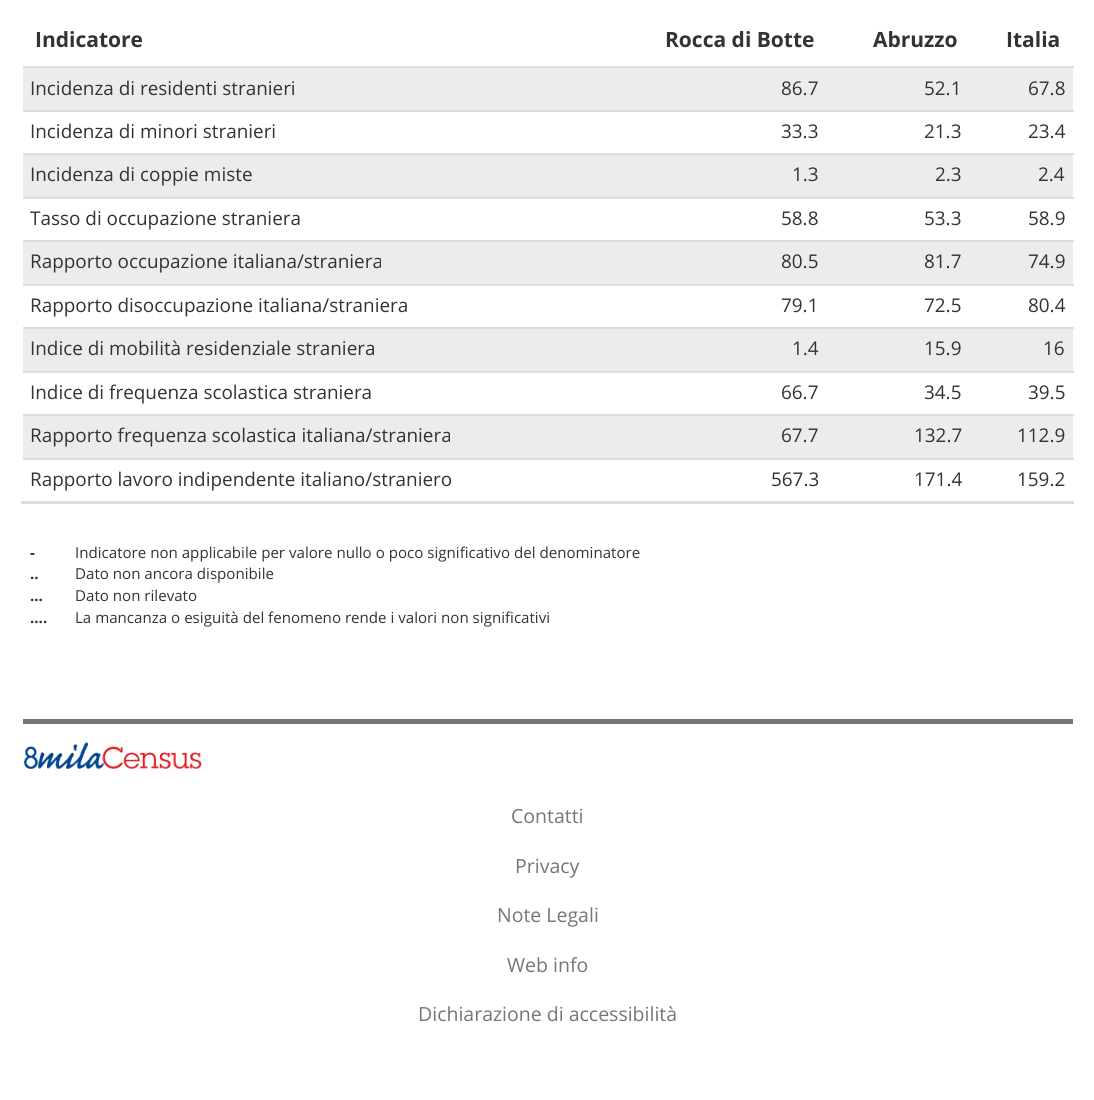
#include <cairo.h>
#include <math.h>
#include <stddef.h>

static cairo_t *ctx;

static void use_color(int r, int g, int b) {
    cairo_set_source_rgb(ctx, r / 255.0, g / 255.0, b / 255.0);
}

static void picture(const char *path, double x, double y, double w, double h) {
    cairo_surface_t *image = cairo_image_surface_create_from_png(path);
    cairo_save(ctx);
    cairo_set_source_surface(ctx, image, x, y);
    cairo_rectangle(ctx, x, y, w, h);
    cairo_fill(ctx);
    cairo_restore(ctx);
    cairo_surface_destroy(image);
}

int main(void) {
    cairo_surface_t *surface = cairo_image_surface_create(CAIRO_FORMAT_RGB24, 1094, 1100);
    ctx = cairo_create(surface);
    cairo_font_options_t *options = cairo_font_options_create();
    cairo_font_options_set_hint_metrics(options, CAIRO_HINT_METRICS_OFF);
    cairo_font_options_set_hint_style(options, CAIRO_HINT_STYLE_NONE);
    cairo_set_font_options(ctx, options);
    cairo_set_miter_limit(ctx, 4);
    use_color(255, 255, 255);
    cairo_paint(ctx);
    cairo_select_font_face(ctx, "Open Sans", CAIRO_FONT_SLANT_NORMAL, CAIRO_FONT_WEIGHT_BOLD);
    cairo_set_font_size(ctx, 21);
    use_color(51, 51, 51);
    cairo_move_to(ctx, 35, 47);
    cairo_show_text(ctx, "Indicatore");
    cairo_move_to(ctx, 665, 47);
    cairo_show_text(ctx, "Rocca di Botte");
    cairo_move_to(ctx, 873, 47);
    cairo_show_text(ctx, "Abruzzo");
    cairo_move_to(ctx, 1006, 47);
    cairo_show_text(ctx, "Italia");
    use_color(236, 236, 236);
    cairo_rectangle(ctx, 23, 68, 1050, 42);
    cairo_fill(ctx);
    cairo_select_font_face(ctx, "Open Sans", CAIRO_FONT_SLANT_NORMAL, CAIRO_FONT_WEIGHT_NORMAL);
    cairo_set_font_size(ctx, 18.9);
    use_color(51, 51, 51);
    cairo_move_to(ctx, 30, 95);
    cairo_show_text(ctx, "Incidenza di residenti stranieri");
    cairo_move_to(ctx, 781, 95);
    cairo_show_text(ctx, "86.7");
    cairo_move_to(ctx, 924, 95);
    cairo_show_text(ctx, "52.1");
    use_color(221, 221, 221);
    cairo_rectangle(ctx, 23, 66, 1051, 2);
    cairo_fill(ctx);
    use_color(51, 51, 51);
    cairo_move_to(ctx, 1028, 95);
    cairo_show_text(ctx, "67.8");
    cairo_move_to(ctx, 30, 138);
    cairo_show_text(ctx, "Incidenza di minori stranieri");
    cairo_move_to(ctx, 781, 138);
    cairo_show_text(ctx, "33.3");
    cairo_move_to(ctx, 924, 138);
    cairo_show_text(ctx, "21.3");
    use_color(221, 221, 221);
    cairo_rectangle(ctx, 23, 110, 1051, 2);
    cairo_fill(ctx);
    use_color(51, 51, 51);
    cairo_move_to(ctx, 1028, 138);
    cairo_show_text(ctx, "23.4");
    use_color(236, 236, 236);
    cairo_rectangle(ctx, 23, 155, 1050, 42);
    cairo_fill(ctx);
    use_color(51, 51, 51);
    cairo_move_to(ctx, 30, 181);
    cairo_show_text(ctx, "Incidenza di coppie miste");
    cairo_move_to(ctx, 792, 181);
    cairo_show_text(ctx, "1.3");
    cairo_move_to(ctx, 935, 181);
    cairo_show_text(ctx, "2.3");
    use_color(221, 221, 221);
    cairo_rectangle(ctx, 23, 153, 1051, 2);
    cairo_fill(ctx);
    use_color(51, 51, 51);
    cairo_move_to(ctx, 1038, 181);
    cairo_show_text(ctx, "2.4");
    cairo_move_to(ctx, 30, 225);
    cairo_show_text(ctx, "Tasso di occupazione straniera");
    cairo_move_to(ctx, 781, 225);
    cairo_show_text(ctx, "58.8");
    cairo_move_to(ctx, 924, 225);
    cairo_show_text(ctx, "53.3");
    use_color(221, 221, 221);
    cairo_rectangle(ctx, 23, 197, 1051, 2);
    cairo_fill(ctx);
    use_color(51, 51, 51);
    cairo_move_to(ctx, 1028, 225);
    cairo_show_text(ctx, "58.9");
    use_color(236, 236, 236);
    cairo_rectangle(ctx, 23, 242, 1050, 42);
    cairo_fill(ctx);
    use_color(51, 51, 51);
    cairo_move_to(ctx, 30, 268);
    cairo_show_text(ctx, "Rapporto occupazione italiana/straniera");
    cairo_move_to(ctx, 781, 268);
    cairo_show_text(ctx, "80.5");
    cairo_move_to(ctx, 924, 268);
    cairo_show_text(ctx, "81.7");
    use_color(221, 221, 221);
    cairo_rectangle(ctx, 23, 240, 1051, 2);
    cairo_fill(ctx);
    use_color(51, 51, 51);
    cairo_move_to(ctx, 1028, 268);
    cairo_show_text(ctx, "74.9");
    cairo_move_to(ctx, 30, 312);
    cairo_show_text(ctx, "Rapporto disoccupazione italiana/straniera");
    cairo_move_to(ctx, 781, 312);
    cairo_show_text(ctx, "79.1");
    cairo_move_to(ctx, 924, 312);
    cairo_show_text(ctx, "72.5");
    use_color(221, 221, 221);
    cairo_rectangle(ctx, 23, 284, 1051, 2);
    cairo_fill(ctx);
    use_color(51, 51, 51);
    cairo_move_to(ctx, 1028, 312);
    cairo_show_text(ctx, "80.4");
    use_color(236, 236, 236);
    cairo_rectangle(ctx, 23, 329, 1050, 42);
    cairo_fill(ctx);
    use_color(51, 51, 51);
    cairo_move_to(ctx, 30, 355);
    cairo_show_text(ctx, "Indice di mobilità residenziale straniera");
    cairo_move_to(ctx, 792, 355);
    cairo_show_text(ctx, "1.4");
    cairo_move_to(ctx, 924, 355);
    cairo_show_text(ctx, "15.9");
    use_color(221, 221, 221);
    cairo_rectangle(ctx, 23, 327, 1051, 2);
    cairo_fill(ctx);
    use_color(51, 51, 51);
    cairo_move_to(ctx, 1043, 355);
    cairo_show_text(ctx, "16");
    cairo_move_to(ctx, 30, 399);
    cairo_show_text(ctx, "Indice di frequenza scolastica straniera");
    cairo_move_to(ctx, 781, 399);
    cairo_show_text(ctx, "66.7");
    cairo_move_to(ctx, 924, 399);
    cairo_show_text(ctx, "34.5");
    use_color(221, 221, 221);
    cairo_rectangle(ctx, 23, 371, 1051, 2);
    cairo_fill(ctx);
    use_color(51, 51, 51);
    cairo_move_to(ctx, 1028, 399);
    cairo_show_text(ctx, "39.5");
    use_color(236, 236, 236);
    cairo_rectangle(ctx, 23, 416, 1050, 42);
    cairo_fill(ctx);
    use_color(51, 51, 51);
    cairo_move_to(ctx, 30, 442);
    cairo_show_text(ctx, "Rapporto frequenza scolastica italiana/straniera");
    cairo_move_to(ctx, 781, 442);
    cairo_show_text(ctx, "67.7");
    cairo_move_to(ctx, 914, 442);
    cairo_show_text(ctx, "132.7");
    use_color(221, 221, 221);
    cairo_rectangle(ctx, 23, 414, 1051, 2);
    cairo_fill(ctx);
    use_color(51, 51, 51);
    cairo_move_to(ctx, 1017, 442);
    cairo_show_text(ctx, "112.9");
    use_color(221, 221, 221);
    cairo_rectangle(ctx, 21, 501, 1053, 3);
    cairo_fill(ctx);
    use_color(51, 51, 51);
    cairo_move_to(ctx, 30, 486);
    cairo_show_text(ctx, "Rapporto lavoro indipendente italiano/straniero");
    cairo_move_to(ctx, 771, 486);
    cairo_show_text(ctx, "567.3");
    cairo_move_to(ctx, 914, 486);
    cairo_show_text(ctx, "171.4");
    use_color(221, 221, 221);
    cairo_rectangle(ctx, 23, 458, 1051, 2);
    cairo_fill(ctx);
    use_color(51, 51, 51);
    cairo_move_to(ctx, 1017, 486);
    cairo_show_text(ctx, "159.2");
    cairo_select_font_face(ctx, "Open Sans", CAIRO_FONT_SLANT_NORMAL, CAIRO_FONT_WEIGHT_BOLD);
    cairo_set_font_size(ctx, 15.1);
    cairo_move_to(ctx, 30, 558);
    cairo_show_text(ctx, "-");
    cairo_select_font_face(ctx, "Open Sans", CAIRO_FONT_SLANT_NORMAL, CAIRO_FONT_WEIGHT_NORMAL);
    cairo_move_to(ctx, 75, 558);
    cairo_show_text(ctx, "Indicatore non applicabile per valore nullo o poco significativo del denominatore");
    cairo_select_font_face(ctx, "Open Sans", CAIRO_FONT_SLANT_NORMAL, CAIRO_FONT_WEIGHT_BOLD);
    cairo_move_to(ctx, 30, 579);
    cairo_show_text(ctx, "..");
    cairo_select_font_face(ctx, "Open Sans", CAIRO_FONT_SLANT_NORMAL, CAIRO_FONT_WEIGHT_NORMAL);
    cairo_move_to(ctx, 75, 579);
    cairo_show_text(ctx, "Dato non ancora disponibile");
    cairo_select_font_face(ctx, "Open Sans", CAIRO_FONT_SLANT_NORMAL, CAIRO_FONT_WEIGHT_BOLD);
    cairo_move_to(ctx, 30, 601);
    cairo_show_text(ctx, "...");
    cairo_select_font_face(ctx, "Open Sans", CAIRO_FONT_SLANT_NORMAL, CAIRO_FONT_WEIGHT_NORMAL);
    cairo_move_to(ctx, 75, 601);
    cairo_show_text(ctx, "Dato non rilevato");
    cairo_select_font_face(ctx, "Open Sans", CAIRO_FONT_SLANT_NORMAL, CAIRO_FONT_WEIGHT_BOLD);
    cairo_move_to(ctx, 30, 623);
    cairo_show_text(ctx, "....");
    cairo_select_font_face(ctx, "Open Sans", CAIRO_FONT_SLANT_NORMAL, CAIRO_FONT_WEIGHT_NORMAL);
    cairo_move_to(ctx, 75, 623);
    cairo_show_text(ctx, "La mancanza o esiguità del fenomeno rende i valori non significativi");
    use_color(118, 118, 118);
    cairo_rectangle(ctx, 23, 719, 1050, 5);
    cairo_fill(ctx);
    picture("img1.png", 23, 742, 179, 27);
    cairo_set_font_size(ctx, 19.5);
    cairo_move_to(ctx, 511, 823);
    cairo_show_text(ctx, "Contatti");
    cairo_move_to(ctx, 515, 873);
    cairo_show_text(ctx, "Privacy");
    cairo_move_to(ctx, 497, 922);
    cairo_show_text(ctx, "Note Legali");
    cairo_move_to(ctx, 507, 972);
    cairo_show_text(ctx, "Web info");
    cairo_move_to(ctx, 418, 1021);
    cairo_show_text(ctx, "Dichiarazione di accessibilità");
    cairo_surface_write_to_png(surface, "result.png");
    cairo_font_options_destroy(options);
    cairo_destroy(ctx);
    cairo_surface_destroy(surface);
    return 0;
}
